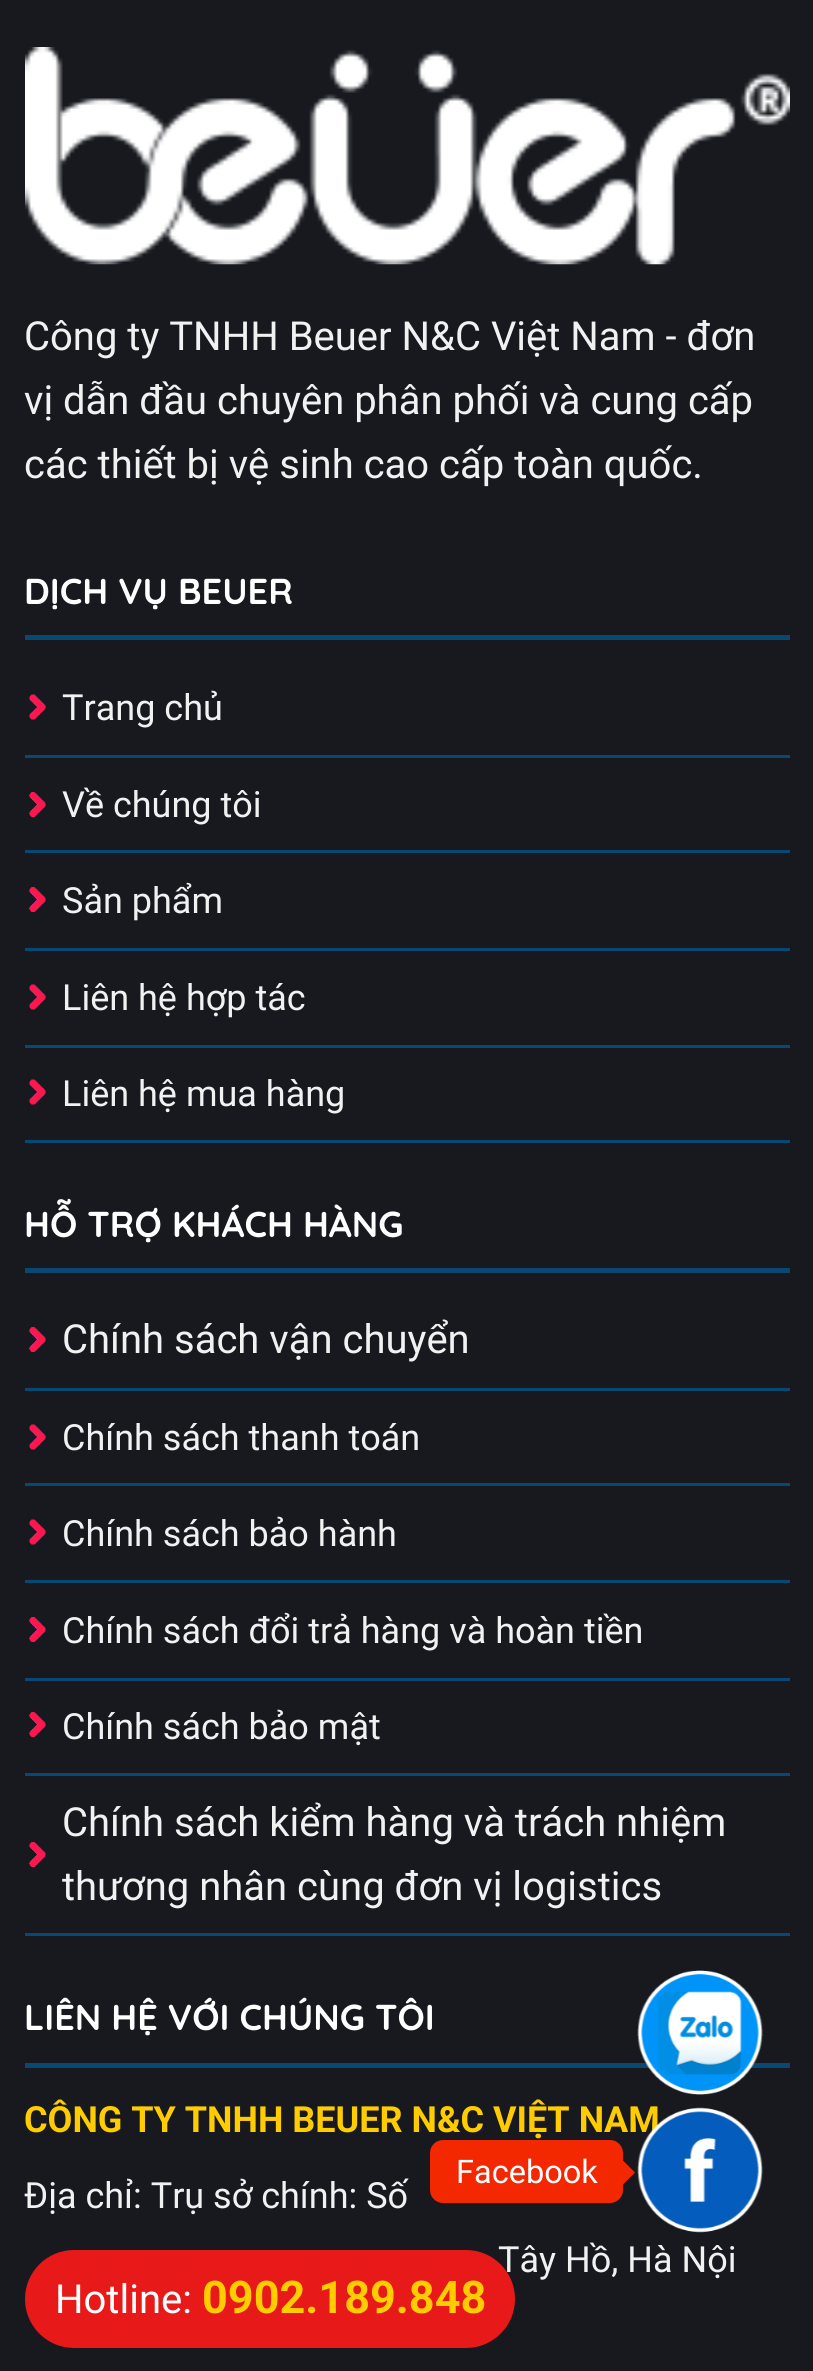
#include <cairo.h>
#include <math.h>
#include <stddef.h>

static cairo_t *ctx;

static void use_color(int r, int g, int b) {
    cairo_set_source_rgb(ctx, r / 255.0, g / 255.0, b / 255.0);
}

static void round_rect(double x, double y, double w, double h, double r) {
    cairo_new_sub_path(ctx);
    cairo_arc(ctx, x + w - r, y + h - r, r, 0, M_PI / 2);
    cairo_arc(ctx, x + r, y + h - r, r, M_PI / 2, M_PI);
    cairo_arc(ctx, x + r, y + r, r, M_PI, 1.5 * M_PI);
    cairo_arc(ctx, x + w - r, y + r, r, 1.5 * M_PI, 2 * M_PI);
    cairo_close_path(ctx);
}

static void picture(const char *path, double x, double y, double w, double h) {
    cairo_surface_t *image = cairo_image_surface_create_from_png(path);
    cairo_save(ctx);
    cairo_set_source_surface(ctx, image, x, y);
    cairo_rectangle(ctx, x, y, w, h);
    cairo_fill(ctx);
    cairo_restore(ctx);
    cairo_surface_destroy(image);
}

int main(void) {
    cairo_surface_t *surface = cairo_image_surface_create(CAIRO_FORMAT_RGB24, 813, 2371);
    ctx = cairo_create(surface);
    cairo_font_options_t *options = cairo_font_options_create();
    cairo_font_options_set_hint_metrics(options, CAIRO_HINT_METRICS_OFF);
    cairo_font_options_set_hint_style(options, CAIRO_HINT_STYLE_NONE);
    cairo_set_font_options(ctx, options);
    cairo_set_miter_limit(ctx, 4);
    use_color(23, 25, 31);
    cairo_paint(ctx);
    picture("img1.png", 25, 47, 765, 218);
    cairo_select_font_face(ctx, "Roboto", CAIRO_FONT_SLANT_NORMAL, CAIRO_FONT_WEIGHT_NORMAL);
    cairo_set_font_size(ctx, 40);
    use_color(241, 241, 241);
    cairo_move_to(ctx, 24, 350);
    cairo_show_text(ctx, "Công ty TNHH Beuer N&C Việt Nam - đơn");
    cairo_move_to(ctx, 24, 414);
    cairo_show_text(ctx, "vị dẫn đầu chuyên phân phối và cung cấp");
    cairo_move_to(ctx, 24, 478);
    cairo_show_text(ctx, "các thiết bị vệ sinh cao cấp toàn quốc.");
    use_color(10, 72, 116);
    cairo_rectangle(ctx, 25, 635, 765, 5);
    cairo_fill(ctx);
    cairo_select_font_face(ctx, "Quicksand Light", CAIRO_FONT_SLANT_NORMAL, CAIRO_FONT_WEIGHT_NORMAL);
    cairo_set_font_size(ctx, 36);
    use_color(255, 255, 255);
    cairo_move_to(ctx, 24, 604);
    cairo_show_text(ctx, "DỊCH VỤ BEUER");
    picture("img2.png", 29, 694, 17, 26);
    use_color(10, 72, 116);
    cairo_rectangle(ctx, 25, 755, 765, 3);
    cairo_fill(ctx);
    cairo_select_font_face(ctx, "Roboto", CAIRO_FONT_SLANT_NORMAL, CAIRO_FONT_WEIGHT_NORMAL);
    use_color(241, 241, 241);
    cairo_move_to(ctx, 62, 720);
    cairo_show_text(ctx, "Trang chủ");
    picture("img3.png", 29, 792, 17, 25);
    use_color(10, 72, 116);
    cairo_rectangle(ctx, 25, 850, 765, 3);
    cairo_fill(ctx);
    use_color(241, 241, 241);
    cairo_move_to(ctx, 62, 817);
    cairo_show_text(ctx, "Về chúng tôi");
    picture("img3.png", 29, 887, 17, 25);
    use_color(10, 72, 116);
    cairo_rectangle(ctx, 25, 948, 765, 3);
    cairo_fill(ctx);
    use_color(241, 241, 241);
    cairo_move_to(ctx, 62, 913);
    cairo_show_text(ctx, "Sản phẩm");
    picture("img2.png", 29, 984, 17, 26);
    use_color(10, 72, 116);
    cairo_rectangle(ctx, 25, 1045, 765, 3);
    cairo_fill(ctx);
    use_color(241, 241, 241);
    cairo_move_to(ctx, 62, 1010);
    cairo_show_text(ctx, "Liên hệ hợp tác");
    picture("img2.png", 29, 1079, 17, 26);
    use_color(10, 72, 116);
    cairo_rectangle(ctx, 25, 1140, 765, 3);
    cairo_fill(ctx);
    use_color(241, 241, 241);
    cairo_move_to(ctx, 62, 1106);
    cairo_show_text(ctx, "Liên hệ mua hàng");
    use_color(10, 72, 116);
    cairo_rectangle(ctx, 25, 1268, 765, 5);
    cairo_fill(ctx);
    cairo_select_font_face(ctx, "Quicksand Light", CAIRO_FONT_SLANT_NORMAL, CAIRO_FONT_WEIGHT_NORMAL);
    use_color(255, 255, 255);
    cairo_move_to(ctx, 24, 1237);
    cairo_show_text(ctx, "HỖ TRỢ KHÁCH HÀNG");
    picture("img3.png", 29, 1327, 17, 25);
    use_color(10, 72, 116);
    cairo_rectangle(ctx, 25, 1388, 765, 3);
    cairo_fill(ctx);
    cairo_select_font_face(ctx, "Roboto", CAIRO_FONT_SLANT_NORMAL, CAIRO_FONT_WEIGHT_NORMAL);
    cairo_set_font_size(ctx, 40);
    use_color(241, 241, 241);
    cairo_move_to(ctx, 62, 1353);
    cairo_show_text(ctx, "Chính sách vận chuyển");
    picture("img2.png", 29, 1424, 17, 26);
    use_color(10, 72, 116);
    cairo_rectangle(ctx, 25, 1483, 765, 3);
    cairo_fill(ctx);
    cairo_set_font_size(ctx, 36);
    use_color(241, 241, 241);
    cairo_move_to(ctx, 62, 1450);
    cairo_show_text(ctx, "Chính sách thanh toán");
    picture("img2.png", 29, 1519, 17, 26);
    use_color(10, 72, 116);
    cairo_rectangle(ctx, 25, 1580, 765, 3);
    cairo_fill(ctx);
    use_color(241, 241, 241);
    cairo_move_to(ctx, 62, 1546);
    cairo_show_text(ctx, "Chính sách bảo hành");
    picture("img3.png", 29, 1617, 17, 25);
    use_color(10, 72, 116);
    cairo_rectangle(ctx, 25, 1678, 765, 3);
    cairo_fill(ctx);
    use_color(241, 241, 241);
    cairo_move_to(ctx, 62, 1643);
    cairo_show_text(ctx, "Chính sách đổi trả hàng và hoàn tiền");
    picture("img3.png", 29, 1712, 17, 25);
    use_color(10, 72, 116);
    cairo_rectangle(ctx, 25, 1773, 765, 3);
    cairo_fill(ctx);
    use_color(241, 241, 241);
    cairo_move_to(ctx, 62, 1739);
    cairo_show_text(ctx, "Chính sách bảo mật");
    picture("img3.png", 29, 1842, 17, 25);
    use_color(10, 72, 116);
    cairo_rectangle(ctx, 25, 1933, 765, 3);
    cairo_fill(ctx);
    cairo_set_font_size(ctx, 40);
    use_color(241, 241, 241);
    cairo_move_to(ctx, 62, 1836);
    cairo_show_text(ctx, "Chính sách kiểm hàng và trách nhiệm");
    cairo_move_to(ctx, 62, 1900);
    cairo_show_text(ctx, "thương nhân cùng đơn vị logistics");
    use_color(10, 72, 116);
    cairo_rectangle(ctx, 25, 2063, 765, 5);
    cairo_fill(ctx);
    cairo_select_font_face(ctx, "Quicksand Light", CAIRO_FONT_SLANT_NORMAL, CAIRO_FONT_WEIGHT_NORMAL);
    cairo_set_font_size(ctx, 36);
    use_color(255, 255, 255);
    cairo_move_to(ctx, 24, 2030);
    cairo_show_text(ctx, "LIÊN HỆ VỚI CHÚNG TÔI");
    cairo_select_font_face(ctx, "Roboto", CAIRO_FONT_SLANT_NORMAL, CAIRO_FONT_WEIGHT_BOLD);
    use_color(255, 204, 0);
    cairo_move_to(ctx, 24, 2132);
    cairo_show_text(ctx, "CÔNG TY TNHH BEUER N&C VIỆT NAM");
    cairo_select_font_face(ctx, "Roboto", CAIRO_FONT_SLANT_NORMAL, CAIRO_FONT_WEIGHT_NORMAL);
    use_color(241, 241, 241);
    cairo_move_to(ctx, 24, 2208);
    cairo_show_text(ctx, "Địa chỉ: Trụ sở chính: Số");
    cairo_move_to(ctx, 498, 2272);
    cairo_show_text(ctx, "Tây Hồ, Hà Nội");
    picture("img4.png", 637, 1970, 126, 125);
    use_color(243, 39, 0);
    round_rect(430, 2140, 193, 63, 13);
    cairo_fill(ctx);
    cairo_set_font_size(ctx, 32.5);
    use_color(255, 255, 255);
    cairo_move_to(ctx, 456, 2183);
    cairo_show_text(ctx, "Facebook");
    use_color(243, 39, 0);
    cairo_new_path(ctx);
    cairo_move_to(ctx, 622.5, 2185);
    cairo_line_to(ctx, 622.5, 2160);
    cairo_line_to(ctx, 635, 2172.5);
    cairo_close_path(ctx);
    cairo_fill(ctx);
    picture("img5.png", 637, 2107, 126, 126);
    use_color(231, 25, 25);
    round_rect(25, 2250, 490, 98, 49);
    cairo_fill(ctx);
    cairo_set_font_size(ctx, 40);
    use_color(255, 255, 255);
    cairo_move_to(ctx, 55, 2313);
    cairo_show_text(ctx, "Hotline:");
    cairo_select_font_face(ctx, "Roboto", CAIRO_FONT_SLANT_NORMAL, CAIRO_FONT_WEIGHT_BOLD);
    cairo_set_font_size(ctx, 45);
    use_color(255, 204, 0);
    cairo_move_to(ctx, 202, 2313);
    cairo_show_text(ctx, "0902.189.848");
    cairo_surface_write_to_png(surface, "result.png");
    cairo_font_options_destroy(options);
    cairo_destroy(ctx);
    cairo_surface_destroy(surface);
    return 0;
}
